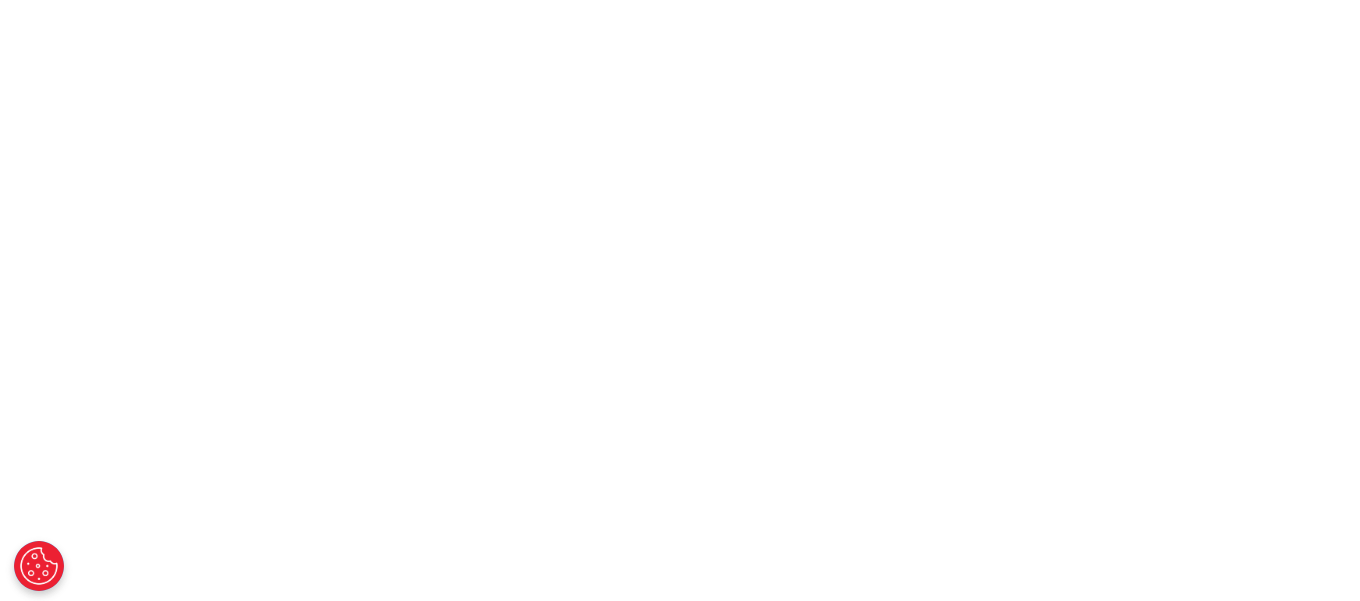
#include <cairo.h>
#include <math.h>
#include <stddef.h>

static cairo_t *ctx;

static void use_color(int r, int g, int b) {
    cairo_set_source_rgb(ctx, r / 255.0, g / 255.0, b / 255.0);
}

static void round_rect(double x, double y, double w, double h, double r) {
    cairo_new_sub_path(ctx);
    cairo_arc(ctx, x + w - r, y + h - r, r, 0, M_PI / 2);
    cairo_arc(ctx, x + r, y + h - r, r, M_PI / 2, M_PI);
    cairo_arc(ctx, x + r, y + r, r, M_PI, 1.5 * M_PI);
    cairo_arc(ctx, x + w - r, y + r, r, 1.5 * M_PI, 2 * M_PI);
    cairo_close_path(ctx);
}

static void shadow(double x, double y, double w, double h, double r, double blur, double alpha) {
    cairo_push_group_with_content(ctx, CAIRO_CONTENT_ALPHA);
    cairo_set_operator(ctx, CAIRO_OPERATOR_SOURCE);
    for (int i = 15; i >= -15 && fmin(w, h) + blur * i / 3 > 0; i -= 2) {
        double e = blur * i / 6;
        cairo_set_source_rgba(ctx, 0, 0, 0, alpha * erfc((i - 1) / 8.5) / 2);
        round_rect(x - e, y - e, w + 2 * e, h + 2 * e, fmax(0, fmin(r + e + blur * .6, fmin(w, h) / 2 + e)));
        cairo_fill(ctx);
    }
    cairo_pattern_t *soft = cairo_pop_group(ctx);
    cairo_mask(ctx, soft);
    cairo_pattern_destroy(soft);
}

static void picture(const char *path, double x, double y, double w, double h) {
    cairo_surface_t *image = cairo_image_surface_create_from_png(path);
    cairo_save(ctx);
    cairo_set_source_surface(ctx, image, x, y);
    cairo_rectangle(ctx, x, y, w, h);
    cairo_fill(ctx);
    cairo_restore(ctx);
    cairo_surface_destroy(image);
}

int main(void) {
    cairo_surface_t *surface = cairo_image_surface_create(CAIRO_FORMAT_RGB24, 1360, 601);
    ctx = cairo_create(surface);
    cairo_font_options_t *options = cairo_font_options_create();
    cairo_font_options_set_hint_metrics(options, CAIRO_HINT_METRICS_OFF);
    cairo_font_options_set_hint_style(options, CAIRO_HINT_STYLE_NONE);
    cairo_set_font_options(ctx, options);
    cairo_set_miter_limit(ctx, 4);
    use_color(255, 255, 255);
    cairo_paint(ctx);
    use_color(0, 0, 0);
    shadow(14, 545, 50, 50, 25, 4, 0.2);
    use_color(106, 170, 228);
    cairo_arc(ctx, 39, 566, 25, 0, 2 * M_PI);
    cairo_fill(ctx);
    picture("img1.png", 14, 541, 50, 50);
    cairo_surface_write_to_png(surface, "result.png");
    cairo_font_options_destroy(options);
    cairo_destroy(ctx);
    cairo_surface_destroy(surface);
    return 0;
}
